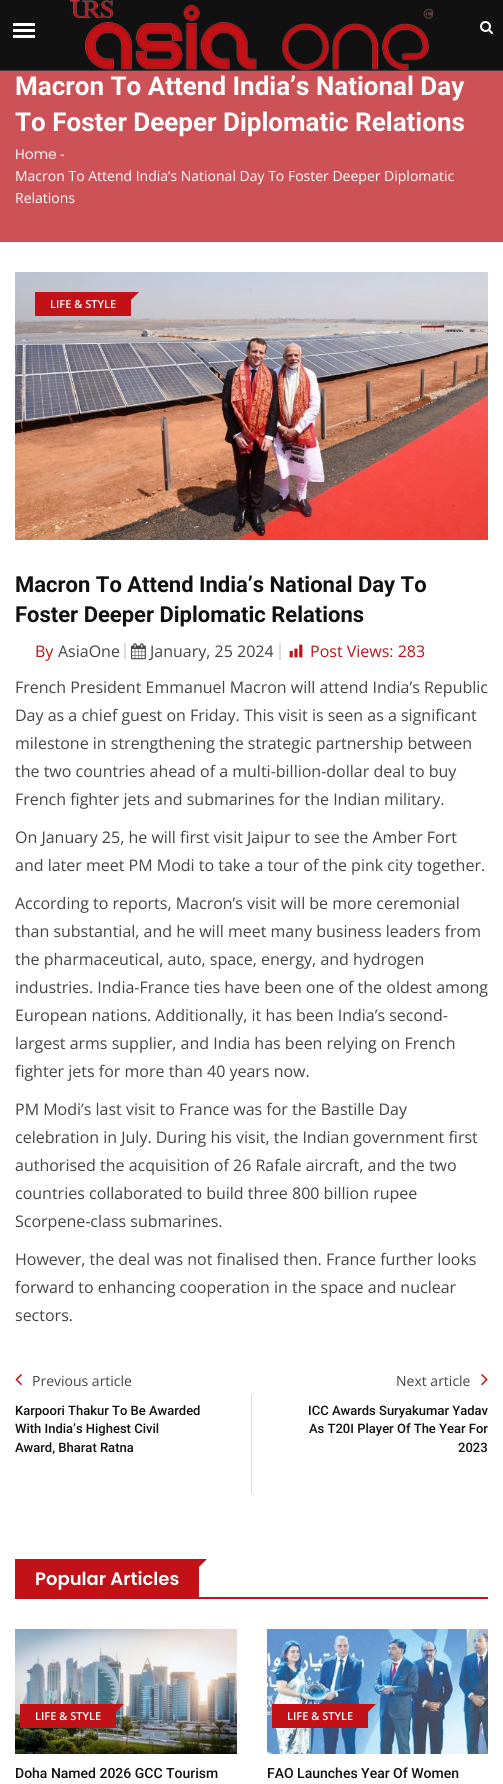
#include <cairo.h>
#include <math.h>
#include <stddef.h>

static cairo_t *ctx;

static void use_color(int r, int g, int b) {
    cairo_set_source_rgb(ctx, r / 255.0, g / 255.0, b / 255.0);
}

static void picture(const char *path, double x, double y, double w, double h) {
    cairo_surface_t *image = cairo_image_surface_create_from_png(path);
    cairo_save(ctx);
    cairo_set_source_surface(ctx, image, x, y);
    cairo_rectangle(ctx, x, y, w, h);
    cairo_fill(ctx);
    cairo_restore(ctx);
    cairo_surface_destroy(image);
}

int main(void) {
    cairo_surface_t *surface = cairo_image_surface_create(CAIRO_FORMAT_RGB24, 503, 1784);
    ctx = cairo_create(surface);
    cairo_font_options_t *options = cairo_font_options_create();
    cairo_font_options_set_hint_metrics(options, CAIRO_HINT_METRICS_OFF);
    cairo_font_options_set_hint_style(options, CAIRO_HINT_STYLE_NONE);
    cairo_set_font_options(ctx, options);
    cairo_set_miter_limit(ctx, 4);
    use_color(255, 255, 255);
    cairo_paint(ctx);
    use_color(58, 58, 58);
    cairo_rectangle(ctx, 0, 70, 503, 1);
    cairo_fill(ctx);
    use_color(17, 17, 17);
    cairo_rectangle(ctx, 0, 0, 503, 70);
    cairo_fill(ctx);
    picture("img1.png", 70, 0, 363, 71);
    use_color(255, 255, 255);
    cairo_rectangle(ctx, 13, 23, 22, 3);
    cairo_fill(ctx);
    cairo_rectangle(ctx, 13, 29, 22, 3);
    cairo_fill(ctx);
    cairo_rectangle(ctx, 13, 35, 22, 3);
    cairo_fill(ctx);
    picture("img2.png", 480, 21, 13, 13);
    use_color(205, 82, 87);
    cairo_rectangle(ctx, 0, 71, 503, 171);
    cairo_fill(ctx);
    cairo_select_font_face(ctx, "Roboto", CAIRO_FONT_SLANT_NORMAL, CAIRO_FONT_WEIGHT_BOLD);
    cairo_set_font_size(ctx, 26);
    use_color(255, 255, 255);
    cairo_move_to(ctx, 15, 95);
    cairo_show_text(ctx, "Macron To Attend India’s National Day");
    cairo_move_to(ctx, 15, 131);
    cairo_show_text(ctx, "To Foster Deeper Diplomatic Relations");
    cairo_select_font_face(ctx, "Poppins", CAIRO_FONT_SLANT_NORMAL, CAIRO_FONT_WEIGHT_NORMAL);
    cairo_set_font_size(ctx, 14);
    use_color(243, 243, 243);
    cairo_move_to(ctx, 15, 159);
    cairo_show_text(ctx, "Home");
    cairo_select_font_face(ctx, "Open Sans", CAIRO_FONT_SLANT_NORMAL, CAIRO_FONT_WEIGHT_NORMAL);
    use_color(255, 255, 255);
    cairo_move_to(ctx, 60, 159);
    cairo_show_text(ctx, "-");
    cairo_move_to(ctx, 15, 181);
    cairo_show_text(ctx, "Macron To Attend India’s National Day To Foster Deeper Diplomatic");
    cairo_move_to(ctx, 15, 203);
    cairo_show_text(ctx, "Relations");
    picture("img3.png", 15, 272, 473, 268);
    use_color(194, 18, 23);
    cairo_rectangle(ctx, 35, 292, 96, 24);
    cairo_fill(ctx);
    cairo_new_path(ctx);
    cairo_move_to(ctx, 131, 292);
    cairo_line_to(ctx, 139, 292);
    cairo_line_to(ctx, 131, 300);
    cairo_close_path(ctx);
    cairo_fill(ctx);
    cairo_select_font_face(ctx, "Open Sans SemiBold", CAIRO_FONT_SLANT_NORMAL, CAIRO_FONT_WEIGHT_NORMAL);
    cairo_set_font_size(ctx, 11);
    use_color(255, 255, 255);
    cairo_move_to(ctx, 50, 308);
    cairo_show_text(ctx, "LIFE & STYLE");
    cairo_select_font_face(ctx, "Roboto", CAIRO_FONT_SLANT_NORMAL, CAIRO_FONT_WEIGHT_BOLD);
    cairo_set_font_size(ctx, 22);
    use_color(17, 17, 17);
    cairo_move_to(ctx, 15, 592);
    cairo_show_text(ctx, "Macron To Attend India’s National Day To");
    cairo_move_to(ctx, 15, 622);
    cairo_show_text(ctx, "Foster Deeper Diplomatic Relations");
    use_color(220, 220, 220);
    cairo_rectangle(ctx, 124, 643, 2, 16);
    cairo_fill(ctx);
    cairo_select_font_face(ctx, "Open Sans", CAIRO_FONT_SLANT_NORMAL, CAIRO_FONT_WEIGHT_NORMAL);
    cairo_set_font_size(ctx, 16);
    use_color(194, 18, 23);
    cairo_move_to(ctx, 35, 657);
    cairo_show_text(ctx, "By");
    use_color(68, 68, 68);
    cairo_move_to(ctx, 58, 657);
    cairo_show_text(ctx, "AsiaOne");
    use_color(220, 220, 220);
    cairo_rectangle(ctx, 279, 643, 2, 17);
    cairo_fill(ctx);
    picture("img4.png", 131, 643, 15, 17);
    use_color(68, 68, 68);
    cairo_move_to(ctx, 150, 657);
    cairo_show_text(ctx, "January, 25 2024");
    picture("img5.png", 289, 644, 14, 14);
    use_color(194, 18, 23);
    cairo_move_to(ctx, 310, 657);
    cairo_show_text(ctx, "Post Views: 283");
    use_color(68, 68, 68);
    cairo_move_to(ctx, 15, 693);
    cairo_show_text(ctx, "French President Emmanuel Macron will attend India’s Republic");
    cairo_move_to(ctx, 15, 721);
    cairo_show_text(ctx, "Day as a chief guest on Friday. This visit is seen as a significant");
    cairo_move_to(ctx, 15, 749);
    cairo_show_text(ctx, "milestone in strengthening the strategic partnership between");
    cairo_move_to(ctx, 15, 777);
    cairo_show_text(ctx, "the two countries ahead of a multi-billion-dollar deal to buy");
    cairo_move_to(ctx, 15, 805);
    cairo_show_text(ctx, "French fighter jets and submarines for the Indian military.");
    cairo_move_to(ctx, 15, 843);
    cairo_show_text(ctx, "On January 25, he will first visit Jaipur to see the Amber Fort");
    cairo_move_to(ctx, 15, 871);
    cairo_show_text(ctx, "and later meet PM Modi to take a tour of the pink city together.");
    cairo_move_to(ctx, 15, 909);
    cairo_show_text(ctx, "According to reports, Macron’s visit will be more ceremonial");
    cairo_move_to(ctx, 15, 937);
    cairo_show_text(ctx, "than substantial, and he will meet many business leaders from");
    cairo_move_to(ctx, 15, 965);
    cairo_show_text(ctx, "the pharmaceutical, auto, space, energy, and hydrogen");
    cairo_move_to(ctx, 15, 993);
    cairo_show_text(ctx, "industries. India-France ties have been one of the oldest among");
    cairo_move_to(ctx, 15, 1021);
    cairo_show_text(ctx, "European nations. Additionally, it has been India’s second-");
    cairo_move_to(ctx, 15, 1049);
    cairo_show_text(ctx, "largest arms supplier, and India has been relying on French");
    cairo_move_to(ctx, 15, 1077);
    cairo_show_text(ctx, "fighter jets for more than 40 years now.");
    cairo_move_to(ctx, 15, 1115);
    cairo_show_text(ctx, "PM Modi’s last visit to France was for the Bastille Day");
    cairo_move_to(ctx, 15, 1143);
    cairo_show_text(ctx, "celebration in July. During his visit, the Indian government first");
    cairo_move_to(ctx, 15, 1171);
    cairo_show_text(ctx, "authorised the acquisition of 26 Rafale aircraft, and the two");
    cairo_move_to(ctx, 15, 1199);
    cairo_show_text(ctx, "countries collaborated to build three 800 billion rupee");
    cairo_move_to(ctx, 15, 1227);
    cairo_show_text(ctx, "Scorpene-class submarines.");
    cairo_move_to(ctx, 15, 1265);
    cairo_show_text(ctx, "However, the deal was not finalised then. France further looks");
    cairo_move_to(ctx, 15, 1293);
    cairo_show_text(ctx, "forward to enhancing cooperation in the space and nuclear");
    cairo_move_to(ctx, 15, 1321);
    cairo_show_text(ctx, "sectors.");
    picture("img6.png", 15, 1374, 7, 12);
    cairo_set_font_size(ctx, 14);
    cairo_move_to(ctx, 32, 1386);
    cairo_show_text(ctx, "Previous article");
    cairo_select_font_face(ctx, "Roboto Medium", CAIRO_FONT_SLANT_NORMAL, CAIRO_FONT_WEIGHT_NORMAL);
    cairo_set_font_size(ctx, 13);
    use_color(17, 17, 17);
    cairo_move_to(ctx, 15, 1415);
    cairo_show_text(ctx, "Karpoori Thakur To Be Awarded");
    cairo_move_to(ctx, 15, 1433);
    cairo_show_text(ctx, "With India’s Highest Civil");
    cairo_move_to(ctx, 15, 1452);
    cairo_show_text(ctx, "Award, Bharat Ratna");
    cairo_select_font_face(ctx, "Open Sans", CAIRO_FONT_SLANT_NORMAL, CAIRO_FONT_WEIGHT_NORMAL);
    cairo_set_font_size(ctx, 14);
    use_color(68, 68, 68);
    cairo_move_to(ctx, 396, 1386);
    cairo_show_text(ctx, "Next article");
    picture("img7.png", 481, 1374, 7, 12);
    cairo_select_font_face(ctx, "Roboto Medium", CAIRO_FONT_SLANT_NORMAL, CAIRO_FONT_WEIGHT_NORMAL);
    cairo_set_font_size(ctx, 13);
    use_color(17, 17, 17);
    cairo_move_to(ctx, 308, 1415);
    cairo_show_text(ctx, "ICC Awards Suryakumar Yadav");
    cairo_move_to(ctx, 309, 1433);
    cairo_show_text(ctx, "As T20I Player Of The Year For");
    cairo_move_to(ctx, 458, 1452);
    cairo_show_text(ctx, "2023");
    use_color(220, 220, 220);
    cairo_rectangle(ctx, 251, 1394, 1, 100);
    cairo_fill(ctx);
    use_color(194, 18, 23);
    cairo_rectangle(ctx, 15, 1559, 184, 38);
    cairo_fill(ctx);
    cairo_new_path(ctx);
    cairo_move_to(ctx, 199, 1559);
    cairo_line_to(ctx, 207, 1559);
    cairo_line_to(ctx, 199, 1567);
    cairo_close_path(ctx);
    cairo_fill(ctx);
    cairo_select_font_face(ctx, "Poppins SemiBold", CAIRO_FONT_SLANT_NORMAL, CAIRO_FONT_WEIGHT_NORMAL);
    cairo_set_font_size(ctx, 18);
    use_color(255, 255, 255);
    cairo_move_to(ctx, 35, 1585);
    cairo_show_text(ctx, "Popular Articles");
    use_color(194, 18, 23);
    cairo_rectangle(ctx, 15, 1597, 473, 2);
    cairo_fill(ctx);
    picture("img8.png", 15, 1629, 222, 125);
    cairo_rectangle(ctx, 20, 1704, 96, 24);
    cairo_fill(ctx);
    cairo_new_path(ctx);
    cairo_move_to(ctx, 116, 1704);
    cairo_line_to(ctx, 124, 1704);
    cairo_line_to(ctx, 116, 1712);
    cairo_close_path(ctx);
    cairo_fill(ctx);
    cairo_select_font_face(ctx, "Open Sans SemiBold", CAIRO_FONT_SLANT_NORMAL, CAIRO_FONT_WEIGHT_NORMAL);
    cairo_set_font_size(ctx, 11);
    use_color(255, 255, 255);
    cairo_move_to(ctx, 35, 1720);
    cairo_show_text(ctx, "LIFE & STYLE");
    cairo_select_font_face(ctx, "Roboto Medium", CAIRO_FONT_SLANT_NORMAL, CAIRO_FONT_WEIGHT_NORMAL);
    cairo_set_font_size(ctx, 14);
    use_color(17, 17, 17);
    cairo_move_to(ctx, 15, 1778);
    cairo_show_text(ctx, "Doha Named 2026 GCC Tourism");
    picture("img9.png", 267, 1629, 221, 125);
    use_color(194, 18, 23);
    cairo_rectangle(ctx, 272, 1704, 96, 24);
    cairo_fill(ctx);
    cairo_new_path(ctx);
    cairo_move_to(ctx, 368, 1704);
    cairo_line_to(ctx, 376, 1704);
    cairo_line_to(ctx, 368, 1712);
    cairo_close_path(ctx);
    cairo_fill(ctx);
    cairo_select_font_face(ctx, "Open Sans SemiBold", CAIRO_FONT_SLANT_NORMAL, CAIRO_FONT_WEIGHT_NORMAL);
    cairo_set_font_size(ctx, 11);
    use_color(255, 255, 255);
    cairo_move_to(ctx, 287, 1720);
    cairo_show_text(ctx, "LIFE & STYLE");
    cairo_select_font_face(ctx, "Roboto Medium", CAIRO_FONT_SLANT_NORMAL, CAIRO_FONT_WEIGHT_NORMAL);
    cairo_set_font_size(ctx, 14);
    use_color(17, 17, 17);
    cairo_move_to(ctx, 267, 1778);
    cairo_show_text(ctx, "FAO Launches Year Of Women");
    cairo_surface_write_to_png(surface, "result.png");
    cairo_font_options_destroy(options);
    cairo_destroy(ctx);
    cairo_surface_destroy(surface);
    return 0;
}
